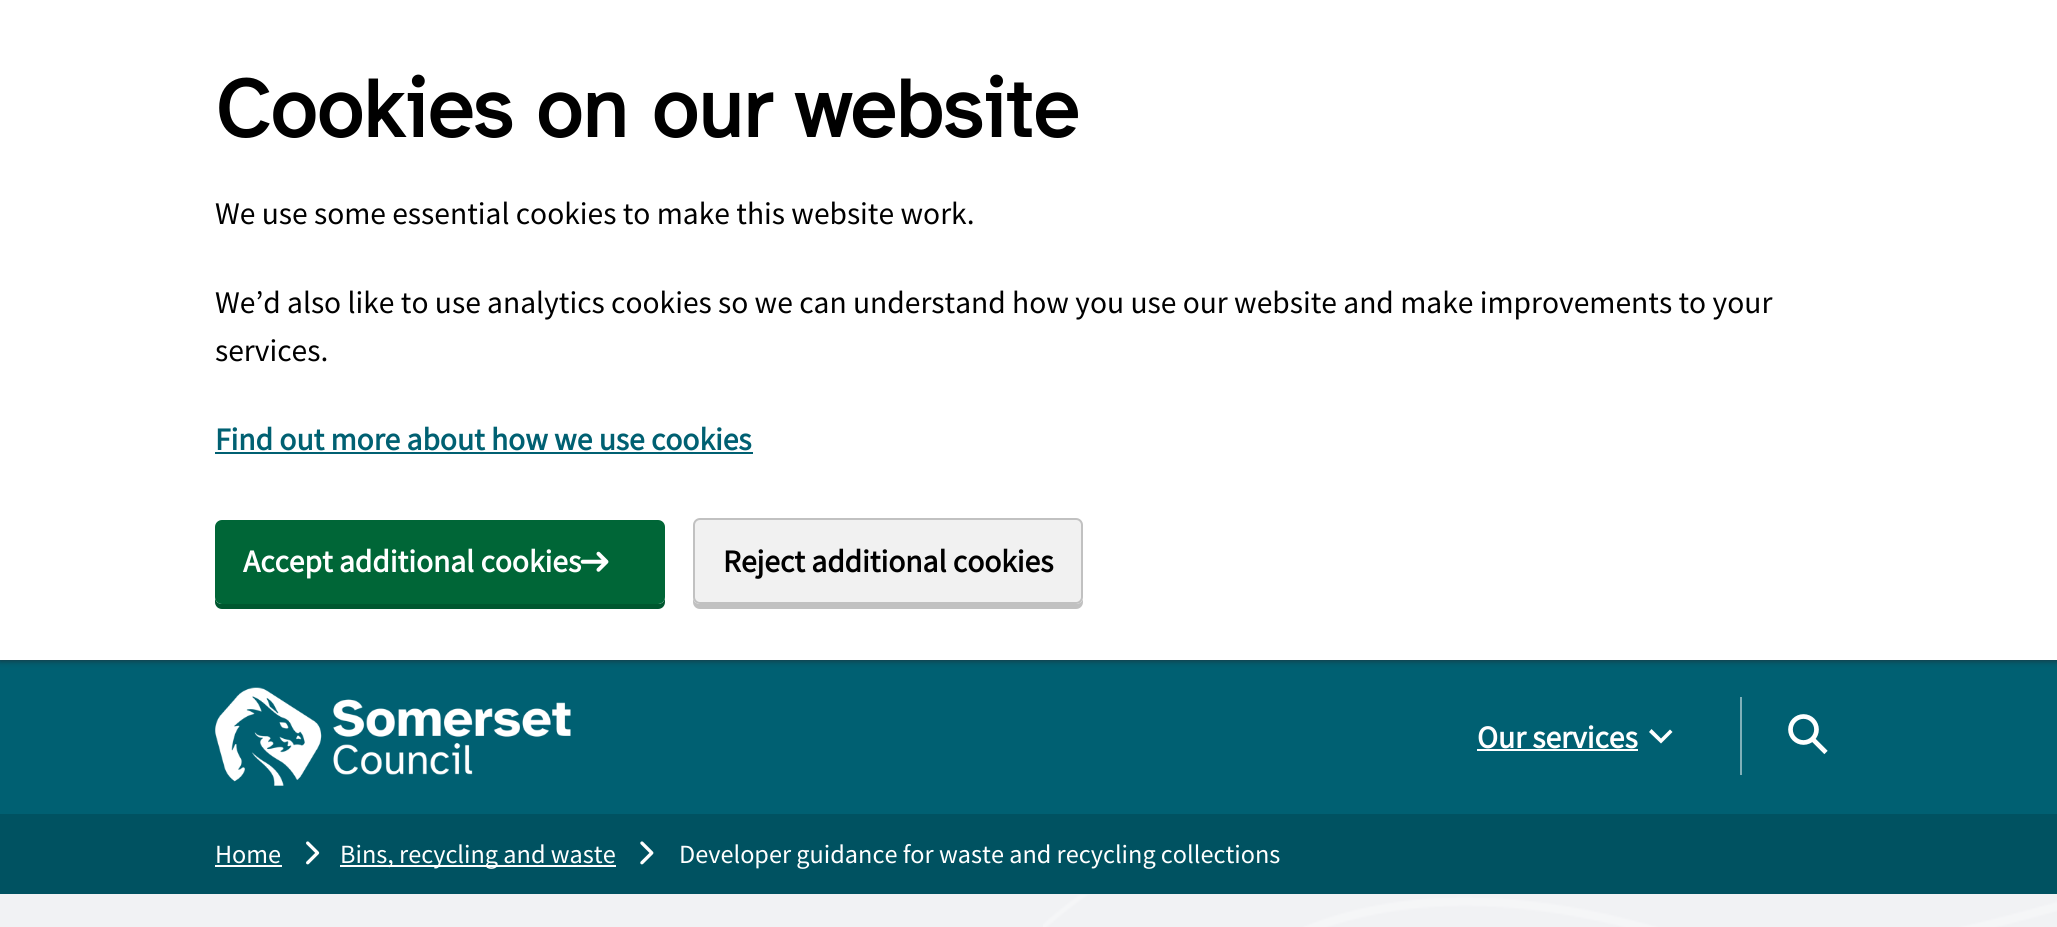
#include <cairo.h>
#include <math.h>
#include <stddef.h>

static cairo_t *ctx;

static void use_color(int r, int g, int b) {
    cairo_set_source_rgb(ctx, r / 255.0, g / 255.0, b / 255.0);
}

static void round_rect(double x, double y, double w, double h, double r) {
    cairo_new_sub_path(ctx);
    cairo_arc(ctx, x + w - r, y + h - r, r, 0, M_PI / 2);
    cairo_arc(ctx, x + r, y + h - r, r, M_PI / 2, M_PI);
    cairo_arc(ctx, x + r, y + r, r, M_PI, 1.5 * M_PI);
    cairo_arc(ctx, x + w - r, y + r, r, 1.5 * M_PI, 2 * M_PI);
    cairo_close_path(ctx);
}

static void shadow(double x, double y, double w, double h, double r, double blur, double alpha) {
    cairo_push_group_with_content(ctx, CAIRO_CONTENT_ALPHA);
    cairo_set_operator(ctx, CAIRO_OPERATOR_SOURCE);
    for (int i = 15; i >= -15 && fmin(w, h) + blur * i / 3 > 0; i -= 2) {
        double e = blur * i / 6;
        cairo_set_source_rgba(ctx, 0, 0, 0, alpha * erfc((i - 1) / 8.5) / 2);
        round_rect(x - e, y - e, w + 2 * e, h + 2 * e, fmax(0, fmin(r + e + blur * .6, fmin(w, h) / 2 + e)));
        cairo_fill(ctx);
    }
    cairo_pattern_t *soft = cairo_pop_group(ctx);
    cairo_mask(ctx, soft);
    cairo_pattern_destroy(soft);
}

static void picture(const char *path, double x, double y, double w, double h) {
    cairo_surface_t *image = cairo_image_surface_create_from_png(path);
    cairo_save(ctx);
    cairo_set_source_surface(ctx, image, x, y);
    cairo_rectangle(ctx, x, y, w, h);
    cairo_fill(ctx);
    cairo_restore(ctx);
    cairo_surface_destroy(image);
}

int main(void) {
    cairo_surface_t *surface = cairo_image_surface_create(CAIRO_FORMAT_RGB24, 2057, 927);
    ctx = cairo_create(surface);
    cairo_font_options_t *options = cairo_font_options_create();
    cairo_font_options_set_hint_metrics(options, CAIRO_HINT_METRICS_OFF);
    cairo_font_options_set_hint_style(options, CAIRO_HINT_STYLE_NONE);
    cairo_set_font_options(ctx, options);
    cairo_set_miter_limit(ctx, 4);
    use_color(0, 96, 114);
    cairo_paint(ctx);
    use_color(33, 43, 50);
    shadow(0, 0, 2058, 660, 0, 3.5, 1);
    use_color(255, 255, 255);
    cairo_rectangle(ctx, 0, 0, 2057, 660);
    cairo_fill(ctx);
    cairo_select_font_face(ctx, "Atkinson Hyperlegible", CAIRO_FONT_SLANT_NORMAL, CAIRO_FONT_WEIGHT_BOLD);
    cairo_set_font_size(ctx, 84);
    use_color(0, 0, 0);
    cairo_move_to(ctx, 215, 137);
    cairo_show_text(ctx, "Cookies on our website");
    cairo_select_font_face(ctx, "Source Sans Pro", CAIRO_FONT_SLANT_NORMAL, CAIRO_FONT_WEIGHT_NORMAL);
    cairo_set_font_size(ctx, 31.5);
    cairo_move_to(ctx, 215, 224);
    cairo_show_text(ctx, "We use some essential cookies to make this website work.");
    cairo_move_to(ctx, 215, 313);
    cairo_show_text(ctx, "We’d also like to use analytics cookies so we can understand how you use our website and make improvements to your");
    cairo_move_to(ctx, 215, 361);
    cairo_show_text(ctx, "services.");
    cairo_select_font_face(ctx, "Source Sans Pro", CAIRO_FONT_SLANT_NORMAL, CAIRO_FONT_WEIGHT_BOLD);
    use_color(0, 96, 114);
    cairo_move_to(ctx, 215, 450);
    cairo_show_text(ctx, "Find out more about how we use cookies");
    cairo_rectangle(ctx, 215, 452, 538, 2);
    cairo_fill(ctx);
    use_color(0, 87, 47);
    cairo_new_path(ctx);
    cairo_move_to(ctx, 215, 530);
    cairo_line_to(ctx, 215, 602);
    cairo_curve_to(ctx, 215, 606, 218, 609, 222, 609);
    cairo_line_to(ctx, 658, 609);
    cairo_curve_to(ctx, 662, 609, 665, 606, 665, 602);
    cairo_line_to(ctx, 665, 597);
    cairo_curve_to(ctx, 665, 601, 662, 604, 658, 604);
    cairo_line_to(ctx, 222, 604);
    cairo_curve_to(ctx, 218, 604, 215, 601, 215, 597);
    cairo_close_path(ctx);
    cairo_fill(ctx);
    use_color(0, 102, 55);
    round_rect(215, 520, 450, 84, 7);
    cairo_fill(ctx);
    use_color(255, 255, 255);
    cairo_move_to(ctx, 243, 572);
    cairo_show_text(ctx, "Accept additional cookies");
    picture("img1.png", 580, 551, 29, 21);
    use_color(193, 193, 193);
    cairo_new_path(ctx);
    cairo_move_to(ctx, 693, 597);
    cairo_line_to(ctx, 693, 602);
    cairo_curve_to(ctx, 693, 606, 696, 609, 700, 609);
    cairo_line_to(ctx, 1076, 609);
    cairo_curve_to(ctx, 1080, 609, 1083, 606, 1083, 602);
    cairo_line_to(ctx, 1083, 599);
    cairo_curve_to(ctx, 1082, 602, 1079, 604, 1076, 604);
    cairo_line_to(ctx, 700, 604);
    cairo_curve_to(ctx, 696, 604, 693, 601, 693, 597);
    cairo_close_path(ctx);
    cairo_fill(ctx);
    use_color(241, 241, 241);
    round_rect(694, 519, 388, 84, 6);
    cairo_fill_preserve(ctx);
    use_color(193, 193, 193);
    cairo_stroke(ctx);
    use_color(0, 0, 0);
    cairo_move_to(ctx, 723, 572);
    cairo_show_text(ctx, "Reject additional cookies");
    picture("img2.png", 215, 687, 356, 99);
    use_color(255, 255, 255);
    cairo_move_to(ctx, 1477, 748);
    cairo_show_text(ctx, "Our services");
    cairo_rectangle(ctx, 1477, 749, 161, 2);
    cairo_fill(ctx);
    cairo_new_path(ctx);
    cairo_move_to(ctx, 1661, 743.5);
    cairo_line_to(ctx, 1649, 732);
    cairo_line_to(ctx, 1651.5, 729);
    cairo_line_to(ctx, 1661, 738.5);
    cairo_line_to(ctx, 1670, 729.5);
    cairo_line_to(ctx, 1672.5, 732);
    cairo_close_path(ctx);
    cairo_fill(ctx);
    use_color(128, 176, 185);
    cairo_rectangle(ctx, 1740, 697, 2, 78);
    cairo_fill(ctx);
    cairo_arc(ctx, 1803.5, 729.5, 13, 0, 2 * M_PI);
    use_color(255, 255, 255);
    cairo_set_line_width(ctx, 4.7);
    cairo_stroke(ctx);
    cairo_new_path(ctx);
    cairo_move_to(ctx, 1813, 739.5);
    cairo_line_to(ctx, 1826, 752.5);
    cairo_stroke(ctx);
    use_color(0, 82, 97);
    cairo_rectangle(ctx, 0, 814, 2057, 80);
    cairo_fill(ctx);
    cairo_select_font_face(ctx, "Source Sans Pro", CAIRO_FONT_SLANT_NORMAL, CAIRO_FONT_WEIGHT_NORMAL);
    cairo_set_font_size(ctx, 26.25);
    use_color(255, 255, 255);
    cairo_move_to(ctx, 215, 863);
    cairo_show_text(ctx, "Home");
    cairo_rectangle(ctx, 215, 865, 67, 2);
    cairo_fill(ctx);
    picture("img3.png", 306, 841, 14, 24);
    cairo_rectangle(ctx, 340, 865, 276, 2);
    cairo_fill(ctx);
    cairo_move_to(ctx, 340, 863);
    cairo_show_text(ctx, "Bins, recycling and waste");
    picture("img4.png", 640, 841, 14, 24);
    cairo_move_to(ctx, 679, 863);
    cairo_show_text(ctx, "Developer guidance for waste and recycling collections");
    use_color(241, 242, 244);
    cairo_rectangle(ctx, 0, 894, 2057, 33);
    cairo_fill(ctx);
    picture("img5.png", 1043, 895, 1014, 32);
    cairo_surface_write_to_png(surface, "result.png");
    cairo_font_options_destroy(options);
    cairo_destroy(ctx);
    cairo_surface_destroy(surface);
    return 0;
}
